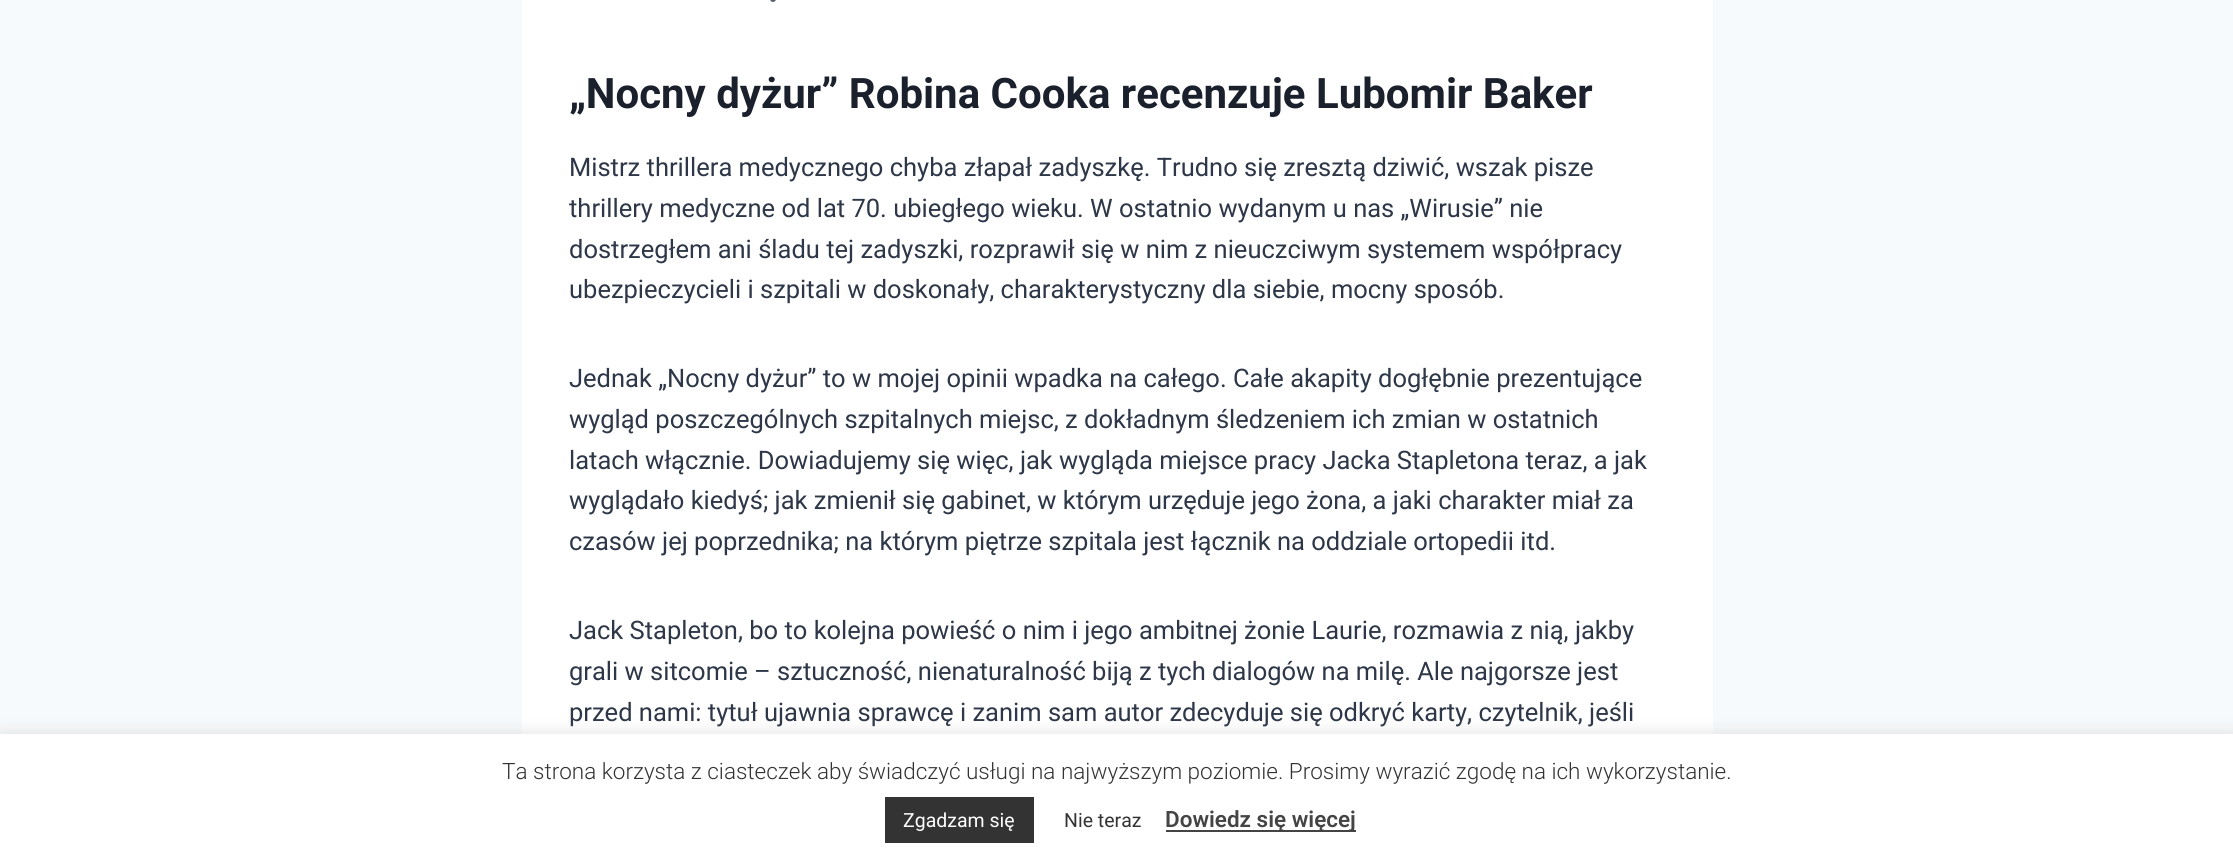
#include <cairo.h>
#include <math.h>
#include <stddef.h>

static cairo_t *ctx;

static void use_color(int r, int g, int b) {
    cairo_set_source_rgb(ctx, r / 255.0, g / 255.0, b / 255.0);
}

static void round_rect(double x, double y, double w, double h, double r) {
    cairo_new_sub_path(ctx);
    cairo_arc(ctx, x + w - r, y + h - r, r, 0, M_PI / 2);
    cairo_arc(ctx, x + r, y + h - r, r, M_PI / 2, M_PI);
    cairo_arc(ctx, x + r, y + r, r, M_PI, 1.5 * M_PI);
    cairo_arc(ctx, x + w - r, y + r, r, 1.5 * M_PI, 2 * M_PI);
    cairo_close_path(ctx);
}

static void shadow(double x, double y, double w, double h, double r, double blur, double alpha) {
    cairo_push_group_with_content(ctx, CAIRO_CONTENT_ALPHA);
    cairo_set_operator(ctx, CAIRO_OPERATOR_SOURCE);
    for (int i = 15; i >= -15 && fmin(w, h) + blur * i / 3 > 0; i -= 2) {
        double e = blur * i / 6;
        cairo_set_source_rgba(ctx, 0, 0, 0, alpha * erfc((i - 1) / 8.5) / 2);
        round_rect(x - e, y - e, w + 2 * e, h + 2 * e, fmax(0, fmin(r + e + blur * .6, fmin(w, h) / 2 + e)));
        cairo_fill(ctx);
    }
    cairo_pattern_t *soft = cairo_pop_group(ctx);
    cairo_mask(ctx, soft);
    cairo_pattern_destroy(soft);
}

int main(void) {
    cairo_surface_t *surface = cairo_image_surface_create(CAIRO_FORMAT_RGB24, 2233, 861);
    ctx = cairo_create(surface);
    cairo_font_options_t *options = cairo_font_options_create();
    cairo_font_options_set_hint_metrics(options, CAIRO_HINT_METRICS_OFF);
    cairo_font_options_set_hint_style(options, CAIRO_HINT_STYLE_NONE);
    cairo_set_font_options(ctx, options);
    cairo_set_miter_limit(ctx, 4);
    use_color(247, 250, 252);
    cairo_paint(ctx);
    use_color(255, 255, 255);
    cairo_rectangle(ctx, 522, 0, 1191, 734);
    cairo_fill(ctx);
    use_color(87, 95, 109);
    round_rect(770, -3, 6, 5, 3);
    cairo_fill(ctx);
    cairo_select_font_face(ctx, "Roboto", CAIRO_FONT_SLANT_NORMAL, CAIRO_FONT_WEIGHT_BOLD);
    cairo_set_font_size(ctx, 42);
    use_color(26, 32, 44);
    cairo_move_to(ctx, 569, 108);
    cairo_show_text(ctx, "„Nocny dyżur” Robina Cooka recenzuje Lubomir Baker");
    cairo_select_font_face(ctx, "Roboto", CAIRO_FONT_SLANT_NORMAL, CAIRO_FONT_WEIGHT_NORMAL);
    cairo_set_font_size(ctx, 25.5);
    use_color(45, 55, 72);
    cairo_move_to(ctx, 569, 176);
    cairo_show_text(ctx, "Mistrz thrillera medycznego chyba złapał zadyszkę. Trudno się zresztą dziwić, wszak pisze");
    cairo_move_to(ctx, 569, 217);
    cairo_show_text(ctx, "thrillery medyczne od lat 70. ubiegłego wieku. W ostatnio wydanym u nas „Wirusie” nie");
    cairo_move_to(ctx, 569, 258);
    cairo_show_text(ctx, "dostrzegłem ani śladu tej zadyszki, rozprawił się w nim z nieuczciwym systemem współpracy");
    cairo_move_to(ctx, 569, 298);
    cairo_show_text(ctx, "ubezpieczycieli i szpitali w doskonały, charakterystyczny dla siebie, mocny sposób.");
    cairo_move_to(ctx, 569, 387);
    cairo_show_text(ctx, "Jednak „Nocny dyżur” to w mojej opinii wpadka na całego. Całe akapity dogłębnie prezentujące");
    cairo_move_to(ctx, 569, 428);
    cairo_show_text(ctx, "wygląd poszczególnych szpitalnych miejsc, z dokładnym śledzeniem ich zmian w ostatnich");
    cairo_move_to(ctx, 569, 469);
    cairo_show_text(ctx, "latach włącznie. Dowiadujemy się więc, jak wygląda miejsce pracy Jacka Stapletona teraz, a jak");
    cairo_move_to(ctx, 569, 509);
    cairo_show_text(ctx, "wyglądało kiedyś; jak zmienił się gabinet, w którym urzęduje jego żona, a jaki charakter miał za");
    cairo_move_to(ctx, 569, 550);
    cairo_show_text(ctx, "czasów jej poprzednika; na którym piętrze szpitala jest łącznik na oddziale ortopedii itd.");
    cairo_move_to(ctx, 569, 639);
    cairo_show_text(ctx, "Jack Stapleton, bo to kolejna powieść o nim i jego ambitnej żonie Laurie, rozmawia z nią, jakby");
    cairo_move_to(ctx, 569, 680);
    cairo_show_text(ctx, "grali w sitcomie – sztuczność, nienaturalność biją z tych dialogów na milę. Ale najgorsze jest");
    cairo_move_to(ctx, 569, 721);
    cairo_show_text(ctx, "przed nami: tytuł ujawnia sprawcę i zanim sam autor zdecyduje się odkryć karty, czytelnik, jeśli");
    use_color(172, 171, 171);
    shadow(0, 732, 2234, 128, 0, 7.5, 0.3);
    use_color(255, 255, 255);
    cairo_rectangle(ctx, 0, 734, 2233, 127);
    cairo_fill(ctx);
    cairo_select_font_face(ctx, "Roboto Light", CAIRO_FONT_SLANT_NORMAL, CAIRO_FONT_WEIGHT_NORMAL);
    cairo_set_font_size(ctx, 22.5);
    use_color(51, 51, 51);
    cairo_move_to(ctx, 502, 779);
    cairo_show_text(ctx, "Ta strona korzysta z ciasteczek aby świadczyć usługi na najwyższym poziomie. Prosimy wyrazić zgodę na ich wykorzystanie.");
    cairo_rectangle(ctx, 885, 797, 149, 46);
    cairo_fill(ctx);
    cairo_select_font_face(ctx, "Roboto", CAIRO_FONT_SLANT_NORMAL, CAIRO_FONT_WEIGHT_NORMAL);
    cairo_set_font_size(ctx, 19.5);
    use_color(255, 255, 255);
    cairo_move_to(ctx, 903, 827);
    cairo_show_text(ctx, "Zgadzam się");
    use_color(51, 51, 51);
    cairo_move_to(ctx, 1064, 827);
    cairo_show_text(ctx, "Nie teraz");
    use_color(68, 68, 68);
    cairo_rectangle(ctx, 1166, 830, 190, 2);
    cairo_fill(ctx);
    cairo_select_font_face(ctx, "Roboto SemiBold", CAIRO_FONT_SLANT_NORMAL, CAIRO_FONT_WEIGHT_NORMAL);
    cairo_set_font_size(ctx, 22.5);
    cairo_move_to(ctx, 1165, 827);
    cairo_show_text(ctx, "Dowiedz się więcej");
    cairo_surface_write_to_png(surface, "result.png");
    cairo_font_options_destroy(options);
    cairo_destroy(ctx);
    cairo_surface_destroy(surface);
    return 0;
}
